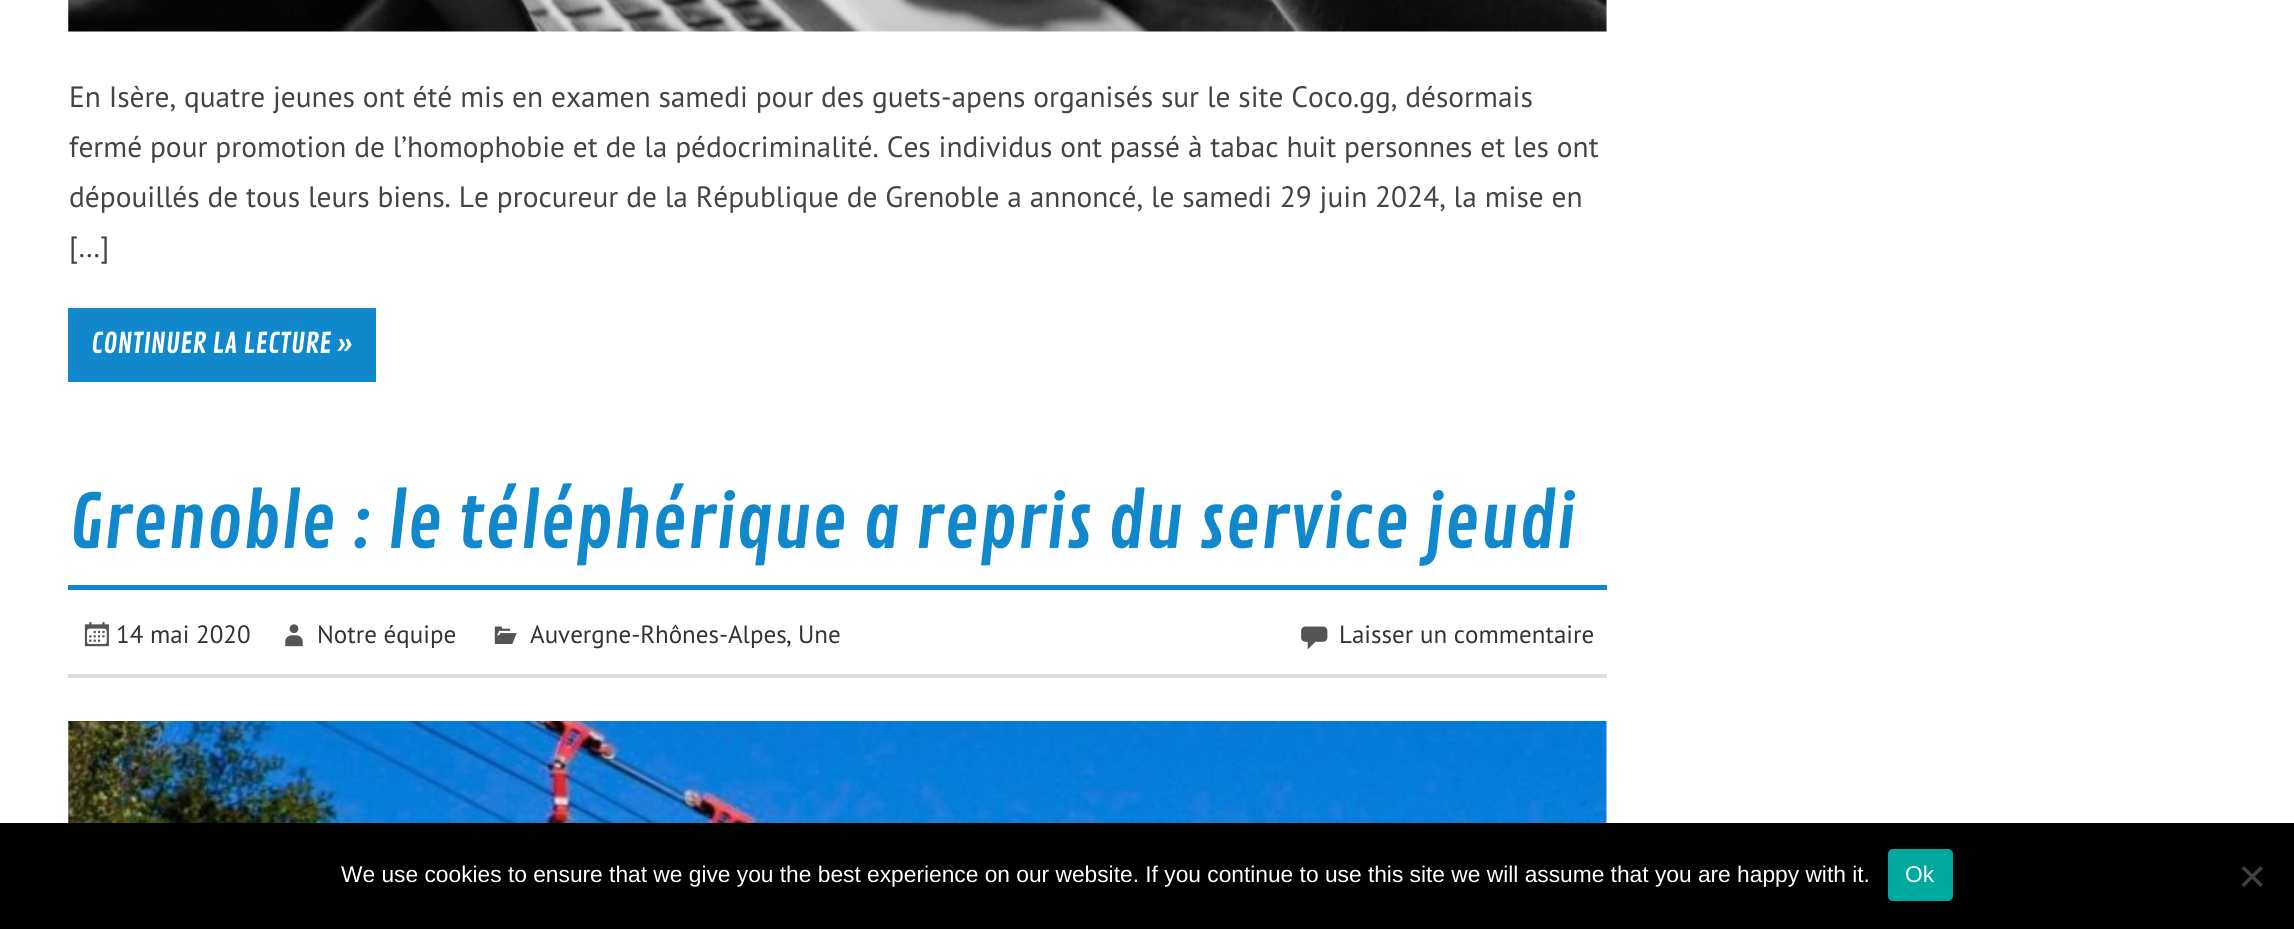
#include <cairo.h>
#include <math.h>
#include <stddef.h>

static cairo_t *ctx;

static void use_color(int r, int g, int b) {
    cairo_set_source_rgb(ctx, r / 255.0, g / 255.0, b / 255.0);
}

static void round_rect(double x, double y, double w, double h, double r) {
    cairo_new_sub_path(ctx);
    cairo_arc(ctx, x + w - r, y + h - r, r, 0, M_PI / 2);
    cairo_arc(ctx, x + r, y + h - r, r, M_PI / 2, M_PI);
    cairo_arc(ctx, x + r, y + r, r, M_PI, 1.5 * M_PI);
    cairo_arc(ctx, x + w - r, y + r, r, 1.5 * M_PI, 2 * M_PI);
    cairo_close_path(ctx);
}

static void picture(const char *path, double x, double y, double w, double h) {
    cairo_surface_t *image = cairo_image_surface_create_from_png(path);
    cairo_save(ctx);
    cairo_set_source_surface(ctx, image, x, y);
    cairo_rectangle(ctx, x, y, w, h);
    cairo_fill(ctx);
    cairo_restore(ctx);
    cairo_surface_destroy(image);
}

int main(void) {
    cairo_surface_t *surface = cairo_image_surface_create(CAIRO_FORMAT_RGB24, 2294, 929);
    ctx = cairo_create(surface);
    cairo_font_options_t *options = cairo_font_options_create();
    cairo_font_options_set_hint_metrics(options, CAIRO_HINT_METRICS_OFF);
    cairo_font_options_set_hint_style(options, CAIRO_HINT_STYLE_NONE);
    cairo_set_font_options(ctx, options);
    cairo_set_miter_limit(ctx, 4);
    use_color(255, 255, 255);
    cairo_paint(ctx);
    picture("img1.png", 68, 0, 1539, 32);
    cairo_select_font_face(ctx, "PT Sans", CAIRO_FONT_SLANT_NORMAL, CAIRO_FONT_WEIGHT_NORMAL);
    cairo_set_font_size(ctx, 29.4);
    use_color(68, 68, 68);
    cairo_move_to(ctx, 69, 107);
    cairo_show_text(ctx, "En Isère, quatre jeunes ont été mis en examen samedi pour des guets-apens organisés sur le site Coco.gg, désormais");
    cairo_move_to(ctx, 69, 157);
    cairo_show_text(ctx, "fermé pour promotion de l’homophobie et de la pédocriminalité. Ces individus ont passé à tabac huit personnes et les ont");
    cairo_move_to(ctx, 69, 207);
    cairo_show_text(ctx, "dépouillés de tous leurs biens. Le procureur de la République de Grenoble a annoncé, le samedi 29 juin 2024, la mise en");
    cairo_move_to(ctx, 69, 257);
    cairo_show_text(ctx, "[…]");
    use_color(17, 136, 204);
    cairo_rectangle(ctx, 68, 308, 308, 74);
    cairo_fill(ctx);
    cairo_select_font_face(ctx, "Contrail One", CAIRO_FONT_SLANT_NORMAL, CAIRO_FONT_WEIGHT_NORMAL);
    cairo_set_font_size(ctx, 28);
    use_color(255, 255, 255);
    cairo_move_to(ctx, 91, 353);
    cairo_show_text(ctx, "CONTINUER LA LECTURE »");
    use_color(17, 136, 204);
    cairo_rectangle(ctx, 68, 585, 1539, 5);
    cairo_fill(ctx);
    cairo_set_font_size(ctx, 73.5);
    cairo_move_to(ctx, 69, 548);
    cairo_show_text(ctx, "Grenoble : le téléphérique a repris du service jeudi");
    use_color(221, 221, 221);
    cairo_rectangle(ctx, 68, 674, 1539, 4);
    cairo_fill(ctx);
    picture("img2.png", 84, 622, 25, 25);
    cairo_select_font_face(ctx, "PT Sans", CAIRO_FONT_SLANT_NORMAL, CAIRO_FONT_WEIGHT_NORMAL);
    cairo_set_font_size(ctx, 25);
    use_color(51, 51, 51);
    cairo_move_to(ctx, 116, 643);
    cairo_show_text(ctx, "14 mai 2020");
    picture("img3.png", 285, 624, 18, 23);
    cairo_move_to(ctx, 317, 643);
    cairo_show_text(ctx, "Notre équipe");
    picture("img4.png", 494, 626, 23, 18);
    cairo_move_to(ctx, 530, 643);
    cairo_show_text(ctx, "Auvergne-Rhônes-Alpes");
    use_color(34, 34, 34);
    cairo_move_to(ctx, 786, 643);
    cairo_show_text(ctx, ",");
    use_color(51, 51, 51);
    cairo_move_to(ctx, 798, 643);
    cairo_show_text(ctx, "Une");
    picture("img5.png", 1301, 626, 27, 24);
    cairo_move_to(ctx, 1339, 643);
    cairo_show_text(ctx, "Laisser un commentaire");
    picture("img6.png", 68, 721, 1539, 102);
    use_color(0, 0, 0);
    cairo_rectangle(ctx, 0, 823, 2294, 106);
    cairo_fill(ctx);
    cairo_select_font_face(ctx, "Liberation Sans", CAIRO_FONT_SLANT_NORMAL, CAIRO_FONT_WEIGHT_NORMAL);
    cairo_set_font_size(ctx, 22.75);
    use_color(255, 255, 255);
    cairo_move_to(ctx, 341, 882);
    cairo_show_text(ctx, "We use cookies to ensure that we give you the best experience on our website. If you continue to use this site we will assume that you are happy with it.");
    use_color(0, 169, 157);
    round_rect(1888, 849, 65, 52, 5);
    cairo_fill(ctx);
    use_color(255, 255, 255);
    cairo_move_to(ctx, 1905, 882);
    cairo_show_text(ctx, "Ok");
    use_color(64, 64, 64);
    cairo_new_path(ctx);
    cairo_move_to(ctx, 2260.5, 866);
    cairo_line_to(ctx, 2263, 868.5);
    cairo_line_to(ctx, 2244, 887);
    cairo_line_to(ctx, 2241.5, 884.5);
    cairo_close_path(ctx);
    cairo_fill(ctx);
    cairo_new_path(ctx);
    cairo_move_to(ctx, 2241.5, 868.5);
    cairo_line_to(ctx, 2244, 866);
    cairo_line_to(ctx, 2263, 884.5);
    cairo_line_to(ctx, 2260.5, 887);
    cairo_close_path(ctx);
    cairo_fill(ctx);
    cairo_surface_write_to_png(surface, "result.png");
    cairo_font_options_destroy(options);
    cairo_destroy(ctx);
    cairo_surface_destroy(surface);
    return 0;
}
